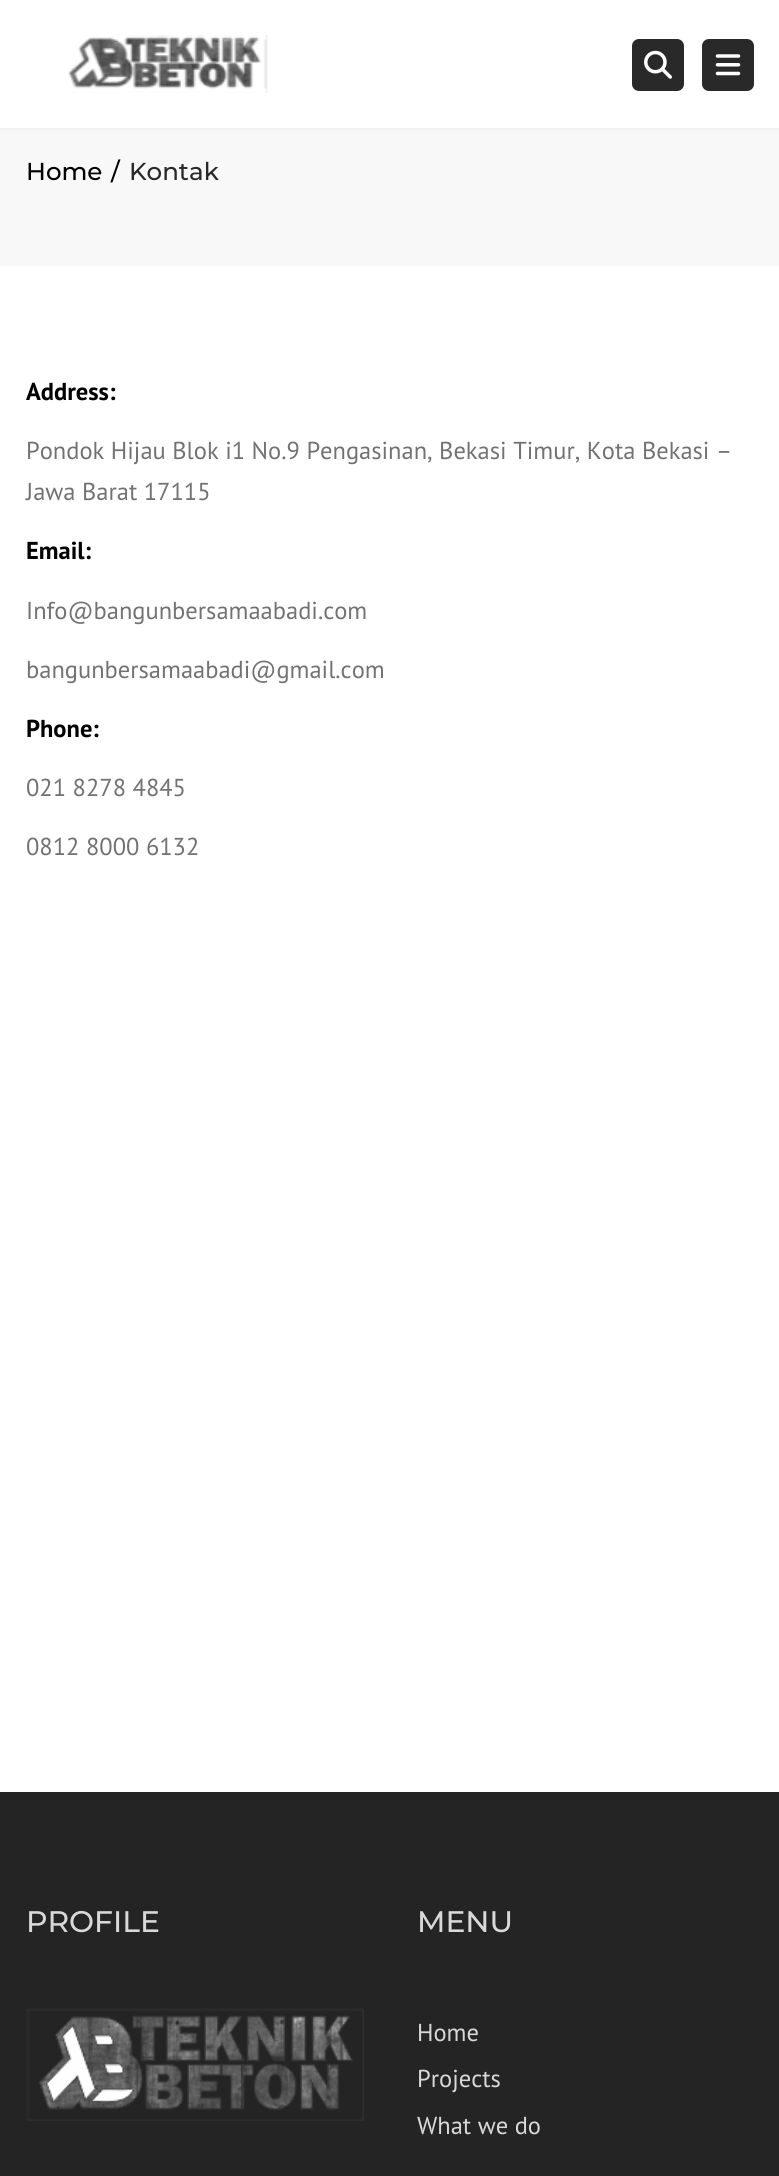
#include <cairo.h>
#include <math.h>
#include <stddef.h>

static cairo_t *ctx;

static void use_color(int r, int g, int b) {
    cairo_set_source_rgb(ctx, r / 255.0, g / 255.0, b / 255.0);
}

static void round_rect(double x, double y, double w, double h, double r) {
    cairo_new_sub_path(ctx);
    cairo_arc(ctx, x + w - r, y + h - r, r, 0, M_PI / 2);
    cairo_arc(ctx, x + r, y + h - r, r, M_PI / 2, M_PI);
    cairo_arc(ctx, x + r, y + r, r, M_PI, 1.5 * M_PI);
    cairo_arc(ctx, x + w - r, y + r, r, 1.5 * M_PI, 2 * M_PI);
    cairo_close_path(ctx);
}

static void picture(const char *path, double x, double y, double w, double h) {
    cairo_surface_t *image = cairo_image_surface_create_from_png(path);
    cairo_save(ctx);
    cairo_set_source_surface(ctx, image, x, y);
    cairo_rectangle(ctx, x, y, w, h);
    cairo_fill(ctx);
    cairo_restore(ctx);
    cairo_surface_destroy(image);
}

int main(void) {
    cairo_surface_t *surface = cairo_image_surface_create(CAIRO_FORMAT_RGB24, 779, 2176);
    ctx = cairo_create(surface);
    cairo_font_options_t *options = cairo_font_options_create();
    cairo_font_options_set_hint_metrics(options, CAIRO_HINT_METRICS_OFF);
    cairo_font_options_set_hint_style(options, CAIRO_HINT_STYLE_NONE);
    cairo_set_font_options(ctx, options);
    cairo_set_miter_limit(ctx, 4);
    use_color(255, 255, 255);
    cairo_paint(ctx);
    use_color(242, 242, 242);
    cairo_rectangle(ctx, 0, 128, 779, 2);
    cairo_fill(ctx);
    picture("img1.png", 68, 35, 200, 58);
    use_color(41, 41, 41);
    round_rect(632, 39, 52, 52, 7);
    cairo_fill(ctx);
    picture("img2.png", 644, 50, 28, 29);
    round_rect(702, 39, 52, 52, 7);
    cairo_fill(ctx);
    picture("img3.png", 715, 54, 26, 22);
    use_color(248, 248, 248);
    cairo_rectangle(ctx, 0, 130, 779, 136);
    cairo_fill(ctx);
    cairo_select_font_face(ctx, "Montserrat Medium", CAIRO_FONT_SLANT_NORMAL, CAIRO_FONT_WEIGHT_NORMAL);
    cairo_set_font_size(ctx, 24.5);
    use_color(0, 0, 0);
    cairo_move_to(ctx, 26, 180);
    cairo_show_text(ctx, "Home");
    cairo_move_to(ctx, 111, 180);
    cairo_show_text(ctx, "/");
    use_color(41, 41, 41);
    cairo_move_to(ctx, 129, 180);
    cairo_show_text(ctx, "Kontak");
    cairo_select_font_face(ctx, "PT Sans", CAIRO_FONT_SLANT_NORMAL, CAIRO_FONT_WEIGHT_BOLD);
    use_color(0, 0, 0);
    cairo_move_to(ctx, 26, 400);
    cairo_show_text(ctx, "Address:");
    cairo_select_font_face(ctx, "PT Sans", CAIRO_FONT_SLANT_NORMAL, CAIRO_FONT_WEIGHT_NORMAL);
    use_color(114, 114, 114);
    cairo_move_to(ctx, 26, 459);
    cairo_show_text(ctx, "Pondok Hijau Blok i1 No.9 Pengasinan, Bekasi Timur, Kota Bekasi –");
    cairo_move_to(ctx, 26, 500);
    cairo_show_text(ctx, "Jawa Barat 17115");
    cairo_select_font_face(ctx, "PT Sans", CAIRO_FONT_SLANT_NORMAL, CAIRO_FONT_WEIGHT_BOLD);
    use_color(0, 0, 0);
    cairo_move_to(ctx, 26, 559);
    cairo_show_text(ctx, "Email:");
    cairo_select_font_face(ctx, "PT Sans", CAIRO_FONT_SLANT_NORMAL, CAIRO_FONT_WEIGHT_NORMAL);
    use_color(114, 114, 114);
    cairo_move_to(ctx, 26, 619);
    cairo_show_text(ctx, "Info@bangunbersamaabadi.com");
    cairo_move_to(ctx, 26, 678);
    cairo_show_text(ctx, "bangunbersamaabadi@gmail.com");
    cairo_select_font_face(ctx, "PT Sans", CAIRO_FONT_SLANT_NORMAL, CAIRO_FONT_WEIGHT_BOLD);
    use_color(0, 0, 0);
    cairo_move_to(ctx, 26, 737);
    cairo_show_text(ctx, "Phone:");
    cairo_select_font_face(ctx, "PT Sans", CAIRO_FONT_SLANT_NORMAL, CAIRO_FONT_WEIGHT_NORMAL);
    use_color(114, 114, 114);
    cairo_move_to(ctx, 26, 796);
    cairo_show_text(ctx, "021 8278 4845");
    cairo_move_to(ctx, 26, 855);
    cairo_show_text(ctx, "0812 8000 6132");
    use_color(36, 36, 36);
    cairo_rectangle(ctx, 0, 1792, 779, 384);
    cairo_fill(ctx);
    cairo_select_font_face(ctx, "Montserrat Medium", CAIRO_FONT_SLANT_NORMAL, CAIRO_FONT_WEIGHT_NORMAL);
    cairo_set_font_size(ctx, 29.75);
    use_color(217, 217, 217);
    cairo_move_to(ctx, 26, 1932);
    cairo_show_text(ctx, "PROFILE");
    picture("img4.png", 26, 2008, 338, 113);
    cairo_move_to(ctx, 417, 1932);
    cairo_show_text(ctx, "MENU");
    cairo_select_font_face(ctx, "PT Sans", CAIRO_FONT_SLANT_NORMAL, CAIRO_FONT_WEIGHT_NORMAL);
    cairo_set_font_size(ctx, 24.5);
    cairo_move_to(ctx, 417, 2041);
    cairo_show_text(ctx, "Home");
    cairo_move_to(ctx, 417, 2087);
    cairo_show_text(ctx, "Projects");
    cairo_move_to(ctx, 417, 2134);
    cairo_show_text(ctx, "What we do");
    cairo_surface_write_to_png(surface, "result.png");
    cairo_font_options_destroy(options);
    cairo_destroy(ctx);
    cairo_surface_destroy(surface);
    return 0;
}
